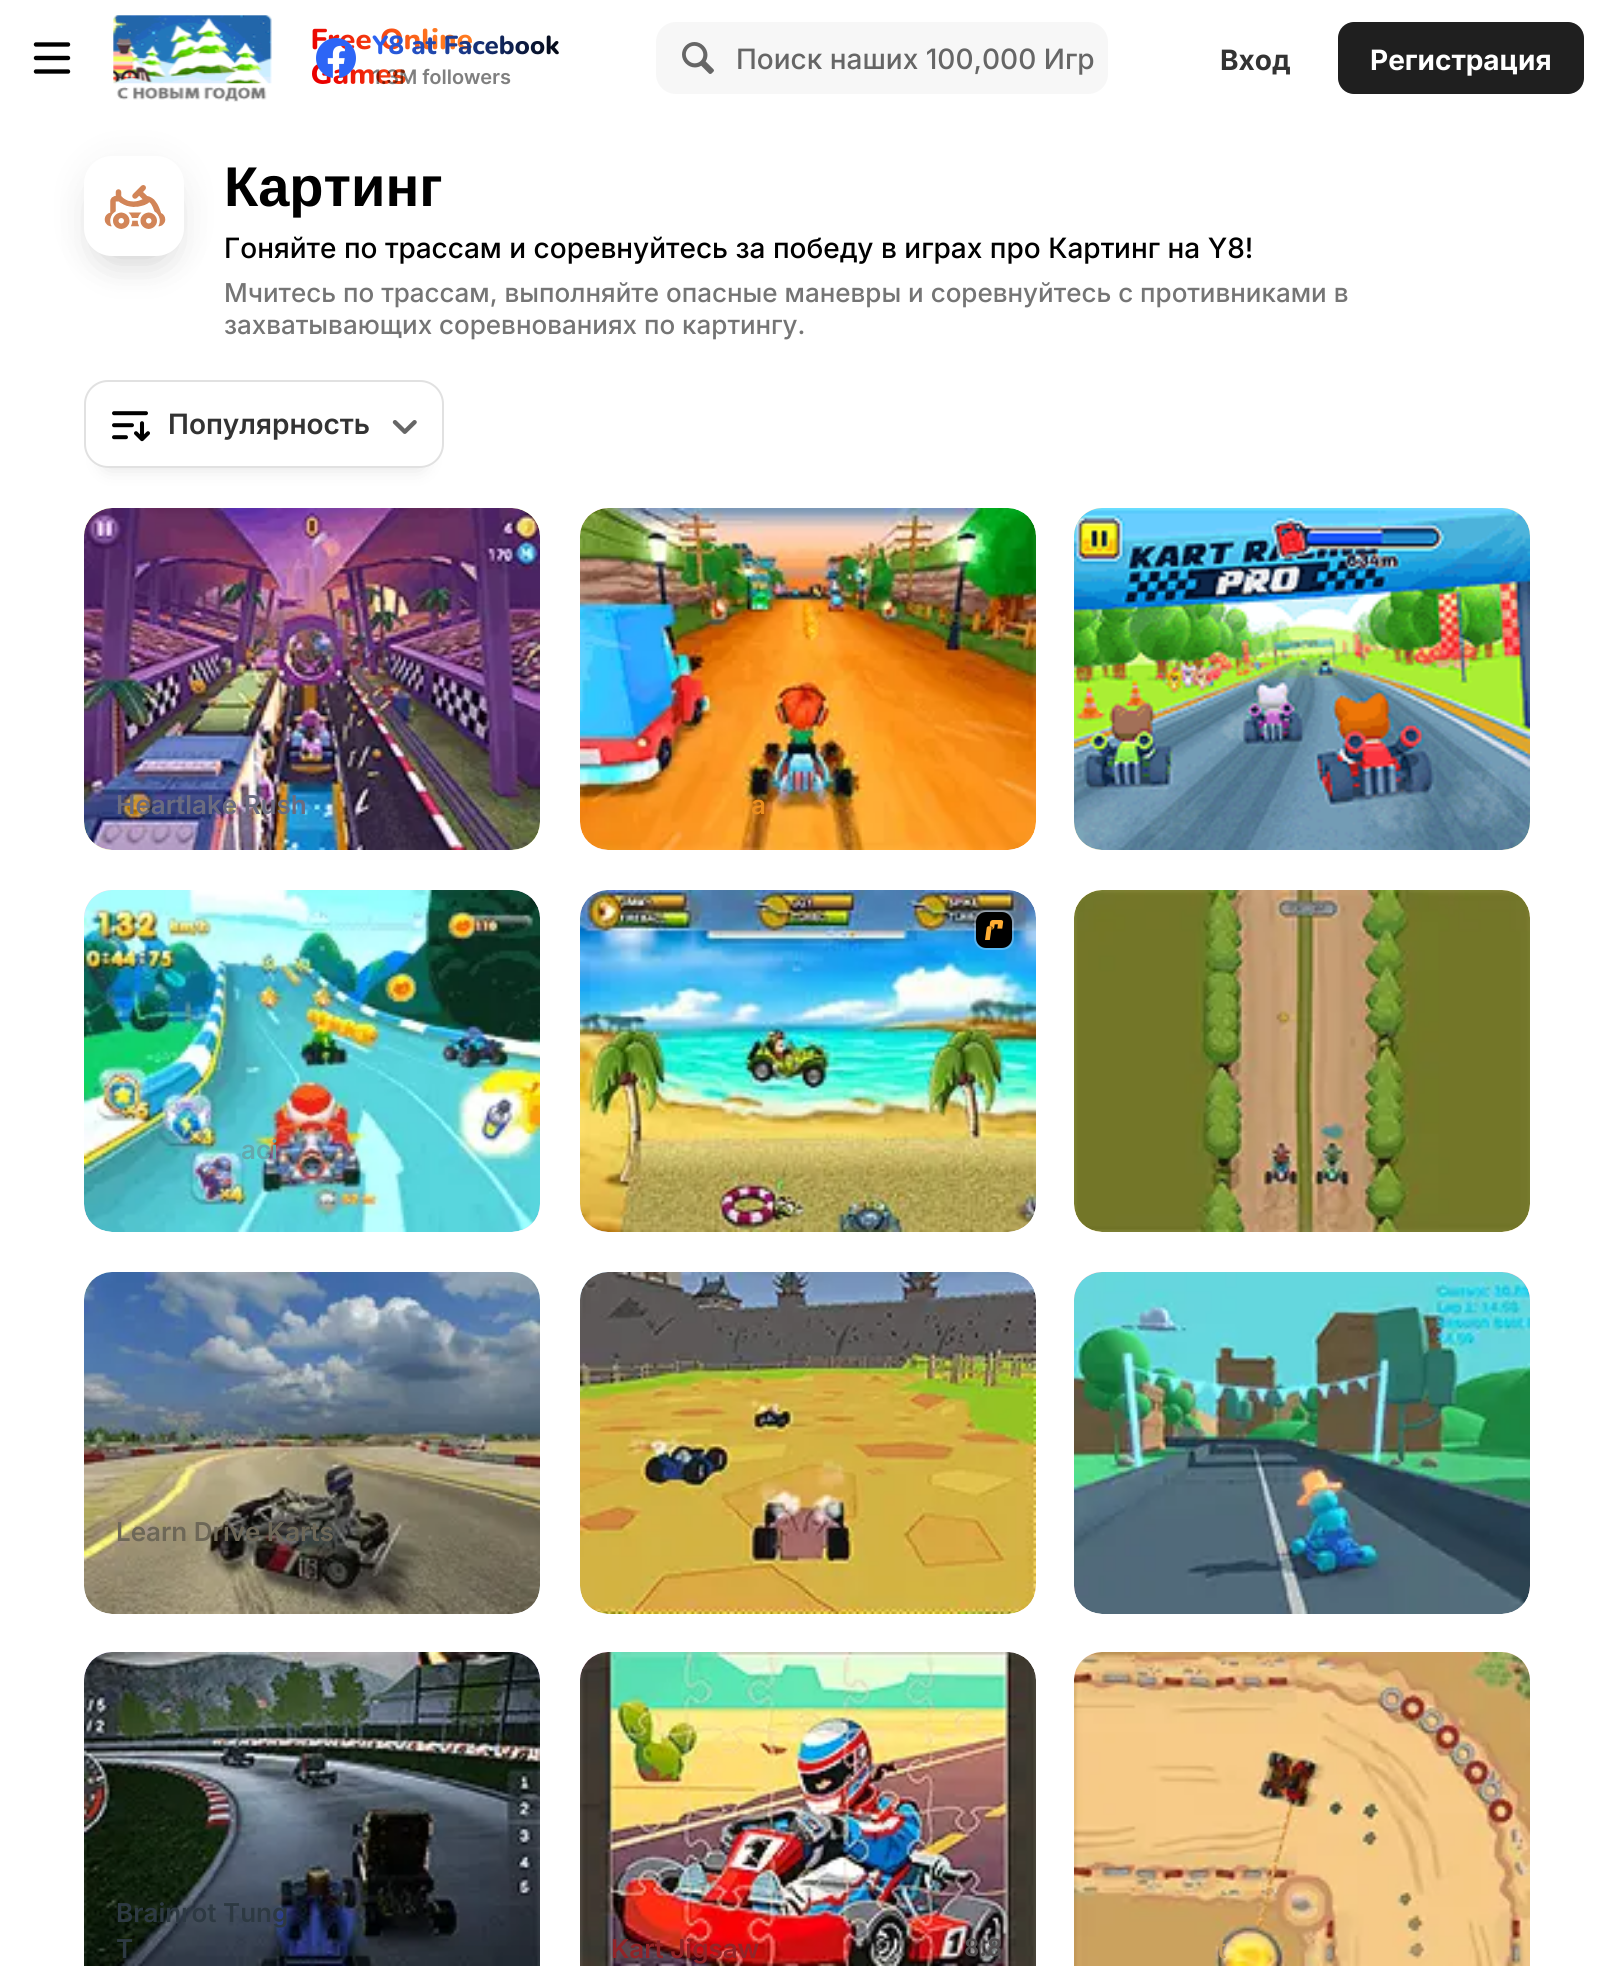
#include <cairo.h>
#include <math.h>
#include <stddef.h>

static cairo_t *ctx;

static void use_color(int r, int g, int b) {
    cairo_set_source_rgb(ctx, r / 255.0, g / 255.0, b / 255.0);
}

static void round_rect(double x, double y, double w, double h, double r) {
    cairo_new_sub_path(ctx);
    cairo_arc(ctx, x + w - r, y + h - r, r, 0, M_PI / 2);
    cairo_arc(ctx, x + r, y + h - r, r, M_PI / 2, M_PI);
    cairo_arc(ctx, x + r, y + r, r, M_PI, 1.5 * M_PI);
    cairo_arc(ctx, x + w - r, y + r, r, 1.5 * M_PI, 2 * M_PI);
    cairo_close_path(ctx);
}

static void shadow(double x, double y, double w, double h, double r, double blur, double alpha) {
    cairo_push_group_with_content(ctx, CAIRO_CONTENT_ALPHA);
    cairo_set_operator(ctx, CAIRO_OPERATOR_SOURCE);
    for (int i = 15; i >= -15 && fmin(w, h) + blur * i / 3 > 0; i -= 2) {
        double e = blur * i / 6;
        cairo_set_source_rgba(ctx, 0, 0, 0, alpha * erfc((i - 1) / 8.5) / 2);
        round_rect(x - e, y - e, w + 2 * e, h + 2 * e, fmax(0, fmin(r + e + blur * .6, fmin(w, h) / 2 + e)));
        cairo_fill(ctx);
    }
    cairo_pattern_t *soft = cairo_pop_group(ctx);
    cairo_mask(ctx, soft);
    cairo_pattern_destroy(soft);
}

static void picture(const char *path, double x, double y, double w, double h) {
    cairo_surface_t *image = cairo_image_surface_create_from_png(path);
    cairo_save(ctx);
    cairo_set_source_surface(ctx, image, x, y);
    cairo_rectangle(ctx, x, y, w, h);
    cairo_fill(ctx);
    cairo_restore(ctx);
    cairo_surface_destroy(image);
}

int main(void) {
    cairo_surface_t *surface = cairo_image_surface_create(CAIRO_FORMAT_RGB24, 1614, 1966);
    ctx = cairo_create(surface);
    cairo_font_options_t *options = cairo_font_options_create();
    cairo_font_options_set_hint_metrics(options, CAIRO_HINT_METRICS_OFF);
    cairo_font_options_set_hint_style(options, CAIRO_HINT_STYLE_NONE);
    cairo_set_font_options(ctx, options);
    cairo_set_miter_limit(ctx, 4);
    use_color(255, 255, 255);
    cairo_paint(ctx);
    cairo_new_path(ctx);
    cairo_move_to(ctx, 36, 44.5);
    cairo_line_to(ctx, 68, 44.5);
    cairo_move_to(ctx, 36, 58);
    cairo_line_to(ctx, 68, 58);
    cairo_move_to(ctx, 68, 71.5);
    cairo_line_to(ctx, 36, 71.5);
    use_color(0, 0, 0);
    cairo_set_line_width(ctx, 4.4);
    cairo_set_line_cap(ctx, CAIRO_LINE_CAP_ROUND);
    cairo_stroke(ctx);
    use_color(0, 0, 0);
    shadow(84, 160, 100, 100, 28, 20, 0.05);
    picture("img1.png", 113, 15, 159, 87);
    picture("img2.png", 312, 28, 160, 56);
    picture("img3.png", 316, 35, 243, 50);
    use_color(247, 247, 247);
    round_rect(656, 22, 452, 72, 20);
    cairo_fill(ctx);
    picture("img4.png", 682, 42, 32, 32);
    cairo_select_font_face(ctx, "Inter Medium", CAIRO_FONT_SLANT_NORMAL, CAIRO_FONT_WEIGHT_NORMAL);
    cairo_set_font_size(ctx, 28);
    use_color(102, 102, 102);
    cairo_move_to(ctx, 736, 69);
    cairo_show_text(ctx, "Поиск наших 100,000 Игр");
    cairo_select_font_face(ctx, "Inter", CAIRO_FONT_SLANT_NORMAL, CAIRO_FONT_WEIGHT_BOLD);
    use_color(51, 51, 51);
    cairo_move_to(ctx, 1220, 70);
    cairo_show_text(ctx, "Вход");
    use_color(31, 31, 31);
    round_rect(1339, 23, 244, 70, 15);
    cairo_fill_preserve(ctx);
    cairo_set_line_width(ctx, 2);
    cairo_set_line_cap(ctx, CAIRO_LINE_CAP_BUTT);
    cairo_stroke(ctx);
    use_color(255, 255, 255);
    cairo_move_to(ctx, 1370, 70);
    cairo_show_text(ctx, "Регистрация");
    use_color(0, 0, 0);
    shadow(104, 196, 60, 60, 8, 20, 0.2);
    use_color(255, 255, 255);
    round_rect(84, 156, 100, 100, 28);
    cairo_fill(ctx);
    picture("img5.png", 104, 185, 62, 44);
    cairo_select_font_face(ctx, "Liberation Sans", CAIRO_FONT_SLANT_NORMAL, CAIRO_FONT_WEIGHT_BOLD);
    cairo_set_font_size(ctx, 56);
    use_color(0, 0, 0);
    cairo_move_to(ctx, 224, 206);
    cairo_show_text(ctx, "Картинг");
    cairo_select_font_face(ctx, "Inter Medium", CAIRO_FONT_SLANT_NORMAL, CAIRO_FONT_WEIGHT_NORMAL);
    cairo_set_font_size(ctx, 28);
    cairo_move_to(ctx, 224, 258);
    cairo_show_text(ctx, "Гоняйте по трассам и соревнуйтесь за победу в играх про Картинг на Y8!");
    cairo_set_font_size(ctx, 26);
    use_color(117, 117, 117);
    cairo_move_to(ctx, 224, 302);
    cairo_show_text(ctx, "Мчитесь по трассам, выполняйте опасные маневры и соревнуйтесь с противниками в");
    cairo_move_to(ctx, 224, 334);
    cairo_show_text(ctx, "захватывающих соревнованиях по картингу.");
    cairo_save(ctx);
    cairo_set_fill_rule(ctx, CAIRO_FILL_RULE_EVEN_ODD);
    cairo_new_path(ctx);
    cairo_move_to(ctx, 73, 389);
    cairo_line_to(ctx, 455, 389);
    cairo_line_to(ctx, 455, 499);
    cairo_line_to(ctx, 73, 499);
    cairo_close_path(ctx);
    cairo_move_to(ctx, 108, 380);
    cairo_line_to(ctx, 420, 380);
    cairo_curve_to(ctx, 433.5, 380, 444, 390.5, 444, 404);
    cairo_line_to(ctx, 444, 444);
    cairo_curve_to(ctx, 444, 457.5, 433.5, 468, 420, 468);
    cairo_line_to(ctx, 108, 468);
    cairo_curve_to(ctx, 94.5, 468, 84, 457.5, 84, 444);
    cairo_line_to(ctx, 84, 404);
    cairo_curve_to(ctx, 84, 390.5, 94.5, 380, 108, 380);
    cairo_close_path(ctx);
    cairo_clip(ctx);
    use_color(0, 0, 0);
    shadow(104, 420, 320, 48, 4, 10, 0.12);
    cairo_restore(ctx);
    round_rect(85, 381, 358, 86, 23);
    cairo_set_source_rgba(ctx, 0, 0, 0, 0.12);
    cairo_stroke(ctx);
    picture("img6.png", 112, 411, 38, 31);
    cairo_select_font_face(ctx, "Inter SemiBold", CAIRO_FONT_SLANT_NORMAL, CAIRO_FONT_WEIGHT_NORMAL);
    cairo_set_font_size(ctx, 28);
    use_color(51, 51, 51);
    cairo_move_to(ctx, 168, 434);
    cairo_show_text(ctx, "Популярность");
    picture("img7.png", 392, 420, 25, 14);
    use_color(240, 245, 191);
    round_rect(84, 508, 456, 342, 28);
    cairo_fill(ctx);
    picture("img8.png", 84, 508, 456, 342);
    cairo_set_font_size(ctx, 26);
    use_color(107, 108, 128);
    cairo_move_to(ctx, 116, 814);
    cairo_show_text(ctx, "Heartlake Rush");
    use_color(251, 224, 217);
    round_rect(580, 508, 454, 342, 28);
    cairo_fill(ctx);
    picture("img9.png", 580, 508, 456, 342);
    use_color(236, 143, 32);
    cairo_move_to(ctx, 751, 814);
    cairo_show_text(ctx, "a");
    use_color(223, 224, 190);
    round_rect(1074, 508, 456, 342, 28);
    cairo_fill(ctx);
    picture("img10.png", 1074, 508, 456, 342);
    cairo_save(ctx);
    round_rect(84, 890, 456, 342, 28);
    cairo_clip(ctx);
    use_color(241, 223, 239);
    cairo_new_path(ctx);
    cairo_move_to(ctx, 112, 890);
    cairo_line_to(ctx, 512, 890);
    cairo_curve_to(ctx, 527.5, 890, 540, 902.5, 540, 918);
    cairo_line_to(ctx, 540, 1230);
    cairo_line_to(ctx, 84, 1230);
    cairo_line_to(ctx, 84, 918);
    cairo_curve_to(ctx, 84, 902.5, 96.5, 890, 112, 890);
    cairo_close_path(ctx);
    cairo_fill(ctx);
    cairo_restore(ctx);
    picture("img11.png", 84, 890, 456, 342);
    use_color(100, 169, 174);
    cairo_move_to(ctx, 241, 1159);
    cairo_show_text(ctx, "aci");
    use_color(229, 218, 222);
    round_rect(580, 890, 454, 342, 28);
    cairo_fill(ctx);
    picture("img12.png", 580, 890, 456, 342);
    picture("img13.png", 974, 910, 40, 40);
    use_color(250, 237, 203);
    round_rect(1074, 890, 456, 342, 28);
    cairo_fill(ctx);
    picture("img14.png", 1074, 890, 456, 342);
    use_color(201, 228, 223);
    round_rect(84, 1272, 456, 340, 28);
    cairo_fill(ctx);
    picture("img15.png", 84, 1272, 456, 342);
    use_color(109, 103, 87);
    cairo_move_to(ctx, 116, 1541);
    cairo_show_text(ctx, "Learn Drive Karts");
    use_color(197, 222, 242);
    round_rect(580, 1272, 454, 340, 28);
    cairo_fill(ctx);
    picture("img16.png", 580, 1272, 456, 342);
    use_color(255, 202, 212);
    round_rect(1074, 1272, 456, 340, 28);
    cairo_fill(ctx);
    picture("img17.png", 1074, 1272, 456, 342);
    use_color(219, 205, 240);
    round_rect(84, 1652, 456, 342, 28);
    cairo_fill(ctx);
    picture("img18.png", 84, 1652, 456, 314);
    use_color(45, 57, 66);
    cairo_move_to(ctx, 116, 1922);
    cairo_show_text(ctx, "Brainrot Tung");
    cairo_move_to(ctx, 116, 1958);
    cairo_show_text(ctx, "T");
    use_color(242, 198, 223);
    round_rect(580, 1652, 454, 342, 28);
    cairo_fill(ctx);
    picture("img19.png", 580, 1652, 456, 314);
    use_color(146, 36, 40);
    cairo_move_to(ctx, 611, 1958);
    cairo_show_text(ctx, "Kart Jigsaw");
    cairo_set_font_size(ctx, 24);
    use_color(83, 79, 80);
    cairo_move_to(ctx, 964, 1956);
    cairo_show_text(ctx, "8.8");
    use_color(248, 217, 196);
    round_rect(1074, 1652, 456, 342, 28);
    cairo_fill(ctx);
    picture("img20.png", 1074, 1652, 456, 314);
    cairo_set_font_size(ctx, 26);
    use_color(199, 159, 94);
    cairo_move_to(ctx, 1217, 1958);
    cairo_show_text(ctx, "t");
    cairo_surface_write_to_png(surface, "result.png");
    cairo_font_options_destroy(options);
    cairo_destroy(ctx);
    cairo_surface_destroy(surface);
    return 0;
}
